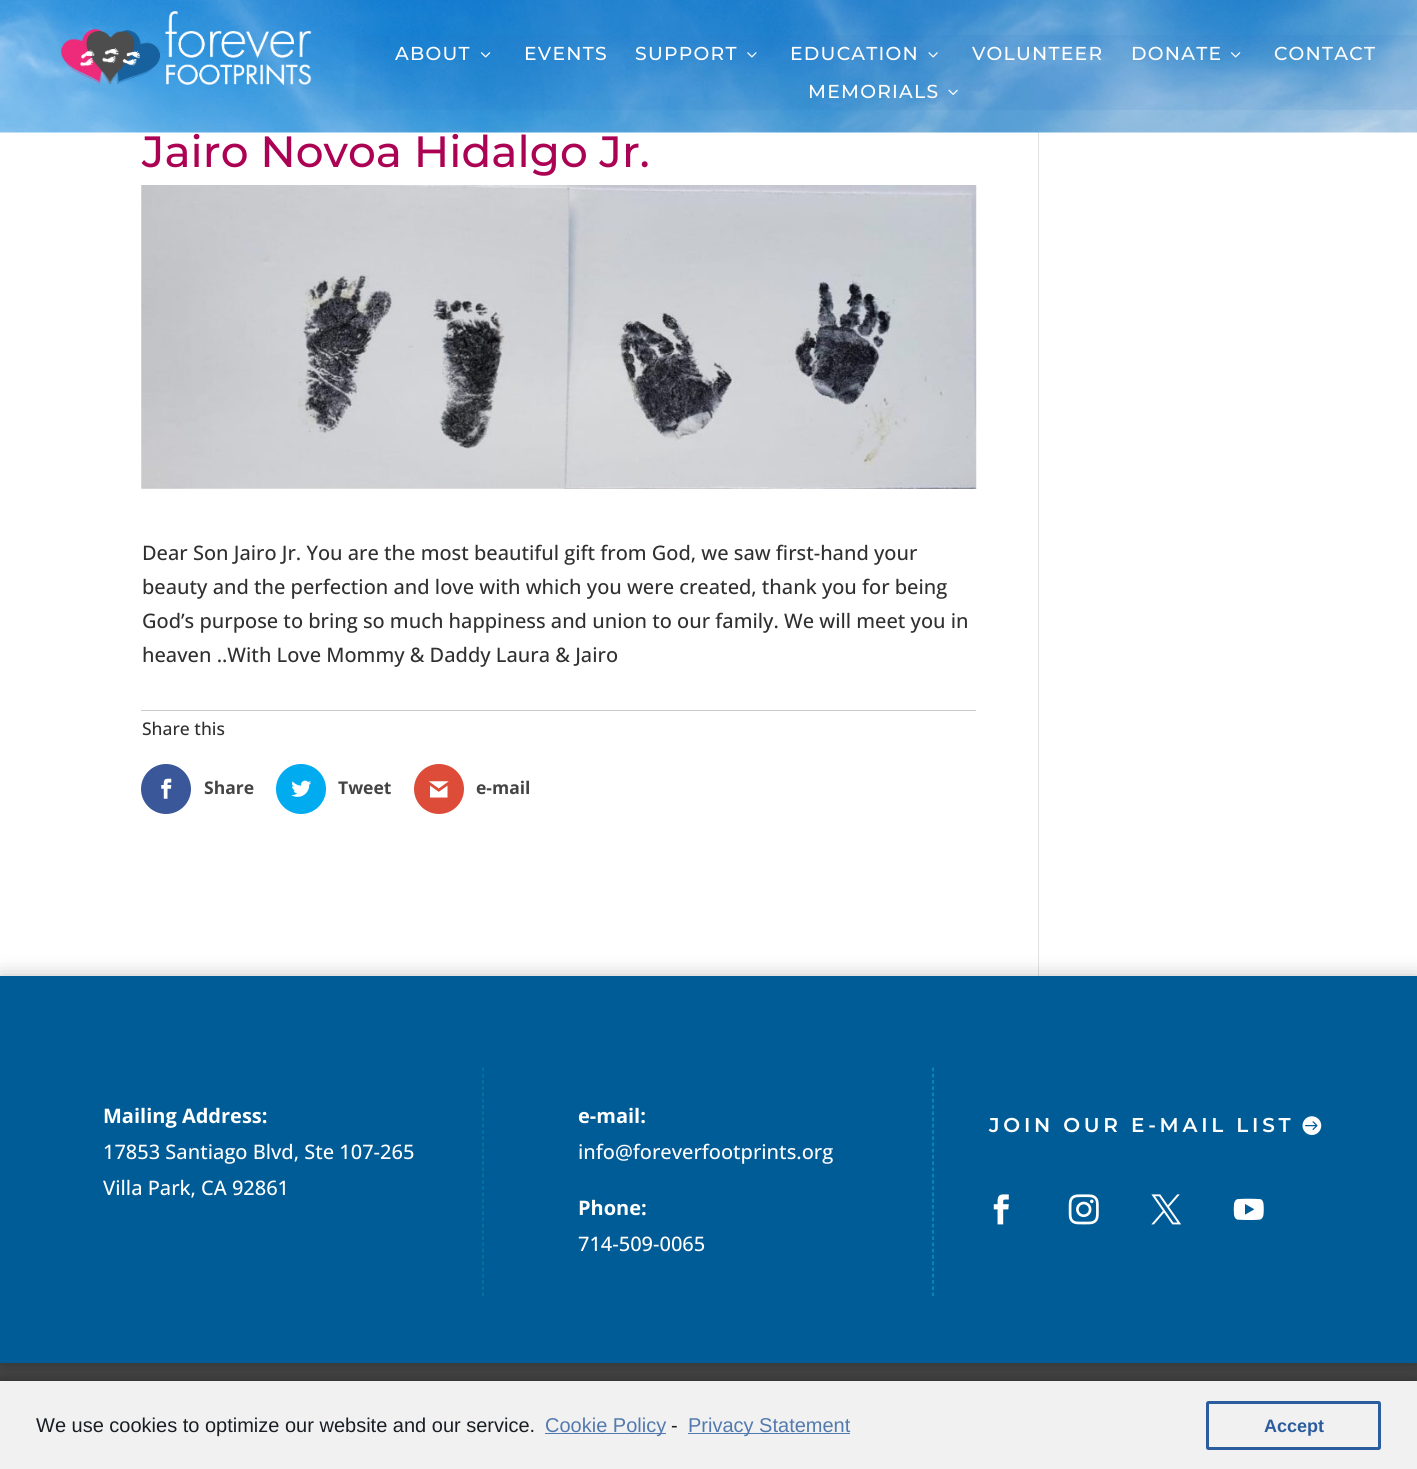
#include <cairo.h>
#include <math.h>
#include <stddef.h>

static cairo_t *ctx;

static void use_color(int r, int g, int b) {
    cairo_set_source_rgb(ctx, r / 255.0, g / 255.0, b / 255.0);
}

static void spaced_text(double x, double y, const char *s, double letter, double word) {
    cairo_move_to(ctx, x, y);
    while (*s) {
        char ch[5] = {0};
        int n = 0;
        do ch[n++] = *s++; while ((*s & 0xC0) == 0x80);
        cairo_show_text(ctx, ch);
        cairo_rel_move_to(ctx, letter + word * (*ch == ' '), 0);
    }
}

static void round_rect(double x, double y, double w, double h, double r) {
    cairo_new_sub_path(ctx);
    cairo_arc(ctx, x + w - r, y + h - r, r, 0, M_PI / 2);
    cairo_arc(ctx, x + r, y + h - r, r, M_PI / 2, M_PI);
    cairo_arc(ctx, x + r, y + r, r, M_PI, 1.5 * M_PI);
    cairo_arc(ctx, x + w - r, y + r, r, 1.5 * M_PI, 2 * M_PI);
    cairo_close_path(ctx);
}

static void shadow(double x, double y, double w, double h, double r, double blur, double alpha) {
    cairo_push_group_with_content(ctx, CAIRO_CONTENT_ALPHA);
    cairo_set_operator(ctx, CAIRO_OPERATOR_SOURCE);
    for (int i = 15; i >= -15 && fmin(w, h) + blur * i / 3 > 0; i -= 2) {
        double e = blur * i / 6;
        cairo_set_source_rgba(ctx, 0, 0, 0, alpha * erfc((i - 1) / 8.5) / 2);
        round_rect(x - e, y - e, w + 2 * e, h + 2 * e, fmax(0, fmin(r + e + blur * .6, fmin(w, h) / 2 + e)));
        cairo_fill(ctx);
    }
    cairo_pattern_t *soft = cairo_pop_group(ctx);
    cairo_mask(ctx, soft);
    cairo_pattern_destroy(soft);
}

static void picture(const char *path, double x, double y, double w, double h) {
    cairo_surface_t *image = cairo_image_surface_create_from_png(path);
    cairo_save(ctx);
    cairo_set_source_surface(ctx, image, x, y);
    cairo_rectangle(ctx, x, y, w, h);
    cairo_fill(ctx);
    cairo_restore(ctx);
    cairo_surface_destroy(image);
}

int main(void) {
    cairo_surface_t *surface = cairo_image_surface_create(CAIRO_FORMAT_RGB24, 1417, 1469);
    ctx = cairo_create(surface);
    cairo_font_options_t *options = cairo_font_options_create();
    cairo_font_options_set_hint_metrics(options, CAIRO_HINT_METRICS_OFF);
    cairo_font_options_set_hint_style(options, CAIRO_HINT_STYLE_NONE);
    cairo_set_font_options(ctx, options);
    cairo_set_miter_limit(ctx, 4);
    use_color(255, 255, 255);
    cairo_paint(ctx);
    use_color(226, 226, 226);
    cairo_rectangle(ctx, 1038, 132, 1, 844);
    cairo_fill(ctx);
    picture("img1.png", 0, 0, 1417, 133);
    picture("img2.png", 61, 11, 251, 74);
    cairo_set_source_rgba(ctx, 0.188, 0.439, 0.769, 0.1);
    cairo_rectangle(ctx, 355, 35, 1062, 75);
    cairo_fill(ctx);
    cairo_select_font_face(ctx, "Montserrat Medium", CAIRO_FONT_SLANT_NORMAL, CAIRO_FONT_WEIGHT_NORMAL);
    cairo_set_font_size(ctx, 18.75);
    use_color(255, 255, 255);
    spaced_text(395, 60, "ABOUT", 1.25, 0);
    picture("img3.png", 481, 52, 10, 6);
    spaced_text(524, 60, "EVENTS", 1.25, 0);
    spaced_text(635, 60, "SUPPORT", 1.25, 0);
    picture("img4.png", 747, 52, 10, 6);
    spaced_text(790, 60, "EDUCATION", 1.25, 0);
    picture("img5.png", 928, 52, 10, 6);
    spaced_text(972, 60, "VOLUNTEER", 1.25, 0);
    spaced_text(1131, 60, "DONATE", 1.25, 0);
    picture("img6.png", 1231, 52, 10, 6);
    spaced_text(1274, 60, "CONTACT", 1.25, 0);
    spaced_text(808, 98, "MEMORIALS", 1.25, 0);
    picture("img7.png", 948, 89, 10, 6);
    cairo_set_font_size(ctx, 43.75);
    use_color(172, 2, 84);
    cairo_move_to(ctx, 142, 167);
    cairo_show_text(ctx, "Jairo Novoa Hidalgo Jr.");
    picture("img8.png", 141, 185, 836, 304);
    cairo_select_font_face(ctx, "Open Sans Medium", CAIRO_FONT_SLANT_NORMAL, CAIRO_FONT_WEIGHT_NORMAL);
    cairo_set_font_size(ctx, 20);
    use_color(48, 48, 48);
    cairo_move_to(ctx, 142, 560);
    cairo_show_text(ctx, "Dear Son Jairo Jr. You are the most beautiful gift from God, we saw first-hand your");
    cairo_move_to(ctx, 142, 594);
    cairo_show_text(ctx, "beauty and the perfection and love with which you were created, thank you for being");
    cairo_move_to(ctx, 142, 628);
    cairo_show_text(ctx, "God’s purpose to bring so much happiness and union to our family. We will meet you in");
    cairo_move_to(ctx, 142, 662);
    cairo_show_text(ctx, "heaven ..With Love Mommy & Daddy Laura & Jairo");
    use_color(204, 204, 204);
    cairo_rectangle(ctx, 141, 710, 835, 1);
    cairo_fill(ctx);
    cairo_set_font_size(ctx, 17.5);
    use_color(48, 48, 48);
    cairo_move_to(ctx, 142, 735);
    cairo_show_text(ctx, "Share this");
    use_color(58, 87, 154);
    cairo_new_path(ctx);
    cairo_arc(ctx, 166, 789, 25, 0, 2 * M_PI);
    cairo_fill(ctx);
    picture("img9.png", 161, 778, 11, 21);
    cairo_select_font_face(ctx, "Open Sans", CAIRO_FONT_SLANT_NORMAL, CAIRO_FONT_WEIGHT_BOLD);
    use_color(68, 68, 68);
    cairo_move_to(ctx, 204, 794);
    cairo_show_text(ctx, "Share");
    use_color(0, 171, 240);
    cairo_new_path(ctx);
    cairo_arc(ctx, 301, 789, 25, 0, 2 * M_PI);
    cairo_fill(ctx);
    picture("img10.png", 291, 780, 21, 17);
    use_color(68, 68, 68);
    cairo_move_to(ctx, 338, 794);
    cairo_show_text(ctx, "Tweet");
    use_color(221, 75, 57);
    cairo_new_path(ctx);
    cairo_arc(ctx, 439, 789, 25, 0, 2 * M_PI);
    cairo_fill(ctx);
    picture("img11.png", 428, 781, 21, 17);
    use_color(68, 68, 68);
    cairo_move_to(ctx, 476, 794);
    cairo_show_text(ctx, "e-mail");
    use_color(71, 71, 71);
    cairo_rectangle(ctx, 0, 1363, 1417, 18);
    cairo_fill(ctx);
    use_color(0, 0, 0);
    shadow(0, 979, 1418, 386, 0, 11, 0.3);
    use_color(0, 92, 150);
    cairo_rectangle(ctx, 0, 976, 1417, 387);
    cairo_fill(ctx);
    cairo_new_path(ctx);
    cairo_move_to(ctx, 483, 1067.5);
    cairo_line_to(ctx, 483, 1296);
    use_color(0, 131, 163);
    cairo_set_line_width(ctx, 1.2);
    cairo_set_dash(ctx, (double[]){3.75, 2.5}, 2, 0);
    cairo_stroke(ctx);
    cairo_set_font_size(ctx, 20);
    use_color(255, 255, 255);
    cairo_move_to(ctx, 103, 1123);
    cairo_show_text(ctx, "Mailing Address:");
    cairo_select_font_face(ctx, "Open Sans Medium", CAIRO_FONT_SLANT_NORMAL, CAIRO_FONT_WEIGHT_NORMAL);
    cairo_move_to(ctx, 103, 1159);
    cairo_show_text(ctx, "17853 Santiago Blvd, Ste 107-265");
    cairo_move_to(ctx, 103, 1195);
    cairo_show_text(ctx, "Villa Park, CA 92861");
    cairo_new_path(ctx);
    cairo_move_to(ctx, 933, 1067.5);
    cairo_line_to(ctx, 933, 1296);
    use_color(13, 160, 197);
    cairo_stroke(ctx);
    cairo_select_font_face(ctx, "Open Sans", CAIRO_FONT_SLANT_NORMAL, CAIRO_FONT_WEIGHT_BOLD);
    use_color(255, 255, 255);
    cairo_move_to(ctx, 578, 1123);
    cairo_show_text(ctx, "e-mail:");
    cairo_select_font_face(ctx, "Open Sans Medium", CAIRO_FONT_SLANT_NORMAL, CAIRO_FONT_WEIGHT_NORMAL);
    cairo_move_to(ctx, 578, 1159);
    cairo_show_text(ctx, "info@foreverfootprints.org");
    cairo_select_font_face(ctx, "Open Sans", CAIRO_FONT_SLANT_NORMAL, CAIRO_FONT_WEIGHT_BOLD);
    cairo_move_to(ctx, 578, 1215);
    cairo_show_text(ctx, "Phone:");
    cairo_select_font_face(ctx, "Open Sans Medium", CAIRO_FONT_SLANT_NORMAL, CAIRO_FONT_WEIGHT_NORMAL);
    cairo_move_to(ctx, 578, 1251);
    cairo_show_text(ctx, "714-509-0065");
    cairo_select_font_face(ctx, "Montserrat SemiBold", CAIRO_FONT_SLANT_NORMAL, CAIRO_FONT_WEIGHT_NORMAL);
    spaced_text(989, 1132, "JOIN OUR E-MAIL LIST", 3.75, 0);
    picture("img12.png", 1302, 1116, 20, 19);
    picture("img13.png", 993, 1194, 16, 31);
    picture("img14.png", 1068, 1194, 31, 31);
    picture("img15.png", 1151, 1194, 31, 31);
    picture("img16.png", 1233, 1198, 31, 23);
    use_color(0, 0, 0);
    shadow(0, 1381, 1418, 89, 0, 6, 0.4);
    use_color(241, 241, 241);
    cairo_rectangle(ctx, 0, 1381, 1417, 88);
    cairo_fill(ctx);
    cairo_select_font_face(ctx, "Liberation Sans", CAIRO_FONT_SLANT_NORMAL, CAIRO_FONT_WEIGHT_NORMAL);
    use_color(25, 30, 35);
    cairo_move_to(ctx, 36, 1432);
    cairo_show_text(ctx, "We use cookies to optimize our website and our service.");
    use_color(83, 122, 174);
    cairo_rectangle(ctx, 545, 1433, 121, 1);
    cairo_fill(ctx);
    cairo_move_to(ctx, 545, 1432);
    cairo_show_text(ctx, "Cookie Policy");
    use_color(25, 30, 35);
    cairo_move_to(ctx, 671, 1432);
    cairo_show_text(ctx, "-");
    use_color(83, 122, 174);
    cairo_rectangle(ctx, 688, 1433, 162, 1);
    cairo_fill(ctx);
    cairo_move_to(ctx, 688, 1432);
    cairo_show_text(ctx, "Privacy Statement");
    round_rect(1207.5, 1402.5, 172, 46, 1);
    use_color(43, 92, 157);
    cairo_set_line_width(ctx, 3);
    cairo_set_dash(ctx, NULL, 0, 0);
    cairo_stroke(ctx);
    cairo_select_font_face(ctx, "Liberation Sans", CAIRO_FONT_SLANT_NORMAL, CAIRO_FONT_WEIGHT_BOLD);
    cairo_set_font_size(ctx, 18);
    cairo_move_to(ctx, 1264, 1432);
    cairo_show_text(ctx, "Accept");
    cairo_surface_write_to_png(surface, "result.png");
    cairo_font_options_destroy(options);
    cairo_destroy(ctx);
    cairo_surface_destroy(surface);
    return 0;
}
